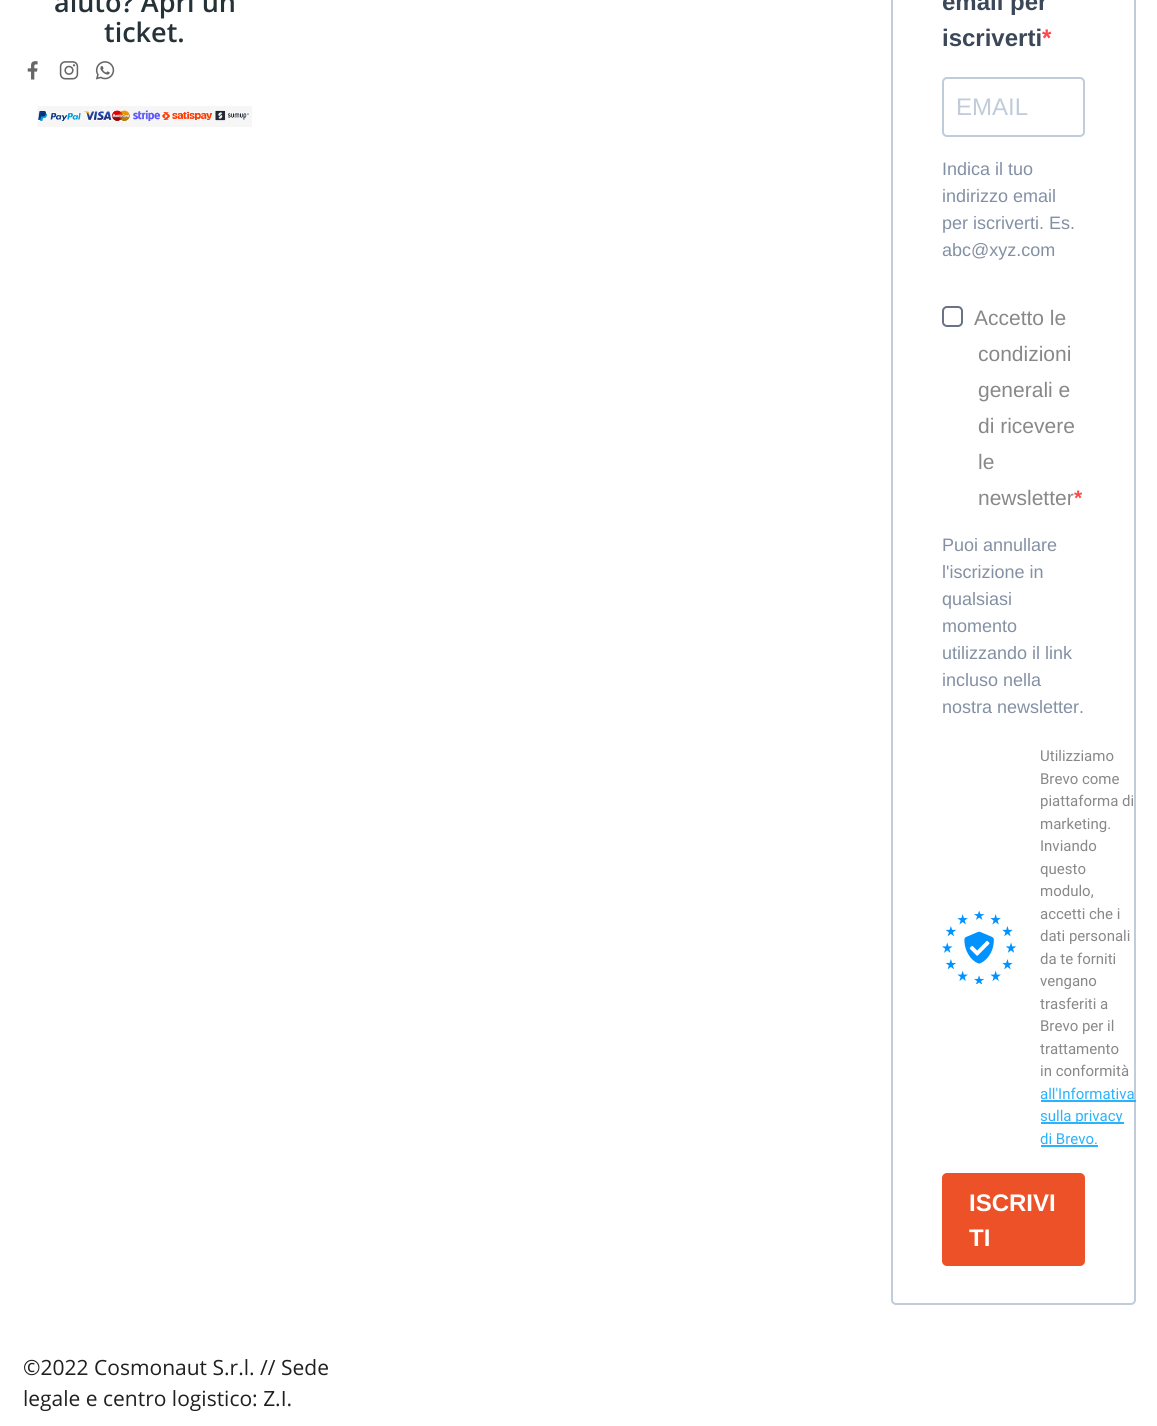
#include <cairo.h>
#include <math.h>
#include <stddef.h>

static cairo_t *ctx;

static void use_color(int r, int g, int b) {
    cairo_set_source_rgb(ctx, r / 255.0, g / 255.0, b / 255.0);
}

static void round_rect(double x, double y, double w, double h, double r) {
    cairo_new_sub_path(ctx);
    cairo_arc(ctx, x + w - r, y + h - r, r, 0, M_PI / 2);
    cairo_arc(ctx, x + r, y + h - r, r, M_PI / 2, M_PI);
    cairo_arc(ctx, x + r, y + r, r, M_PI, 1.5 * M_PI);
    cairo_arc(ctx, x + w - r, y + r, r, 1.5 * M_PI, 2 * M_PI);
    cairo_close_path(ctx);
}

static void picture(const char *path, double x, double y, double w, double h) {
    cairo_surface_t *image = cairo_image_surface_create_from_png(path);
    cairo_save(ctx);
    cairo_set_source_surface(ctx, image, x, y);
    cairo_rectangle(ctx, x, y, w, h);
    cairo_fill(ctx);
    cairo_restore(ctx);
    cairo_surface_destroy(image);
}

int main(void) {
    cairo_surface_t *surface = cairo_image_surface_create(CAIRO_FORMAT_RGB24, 1157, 1426);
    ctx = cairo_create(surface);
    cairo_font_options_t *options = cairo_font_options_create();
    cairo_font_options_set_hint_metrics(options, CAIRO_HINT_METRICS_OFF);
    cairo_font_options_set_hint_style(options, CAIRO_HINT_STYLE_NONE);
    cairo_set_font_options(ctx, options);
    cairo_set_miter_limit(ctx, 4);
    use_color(255, 255, 255);
    cairo_paint(ctx);
    cairo_select_font_face(ctx, "Open Sans SemiBold", CAIRO_FONT_SLANT_NORMAL, CAIRO_FONT_WEIGHT_NORMAL);
    cairo_set_font_size(ctx, 27);
    use_color(37, 50, 55);
    cairo_move_to(ctx, 54, 12);
    cairo_show_text(ctx, "aiuto? Apri un");
    cairo_move_to(ctx, 104, 42);
    cairo_show_text(ctx, "ticket.");
    picture("img1.png", 27, 61, 11, 19);
    picture("img2.png", 59, 61, 20, 19);
    picture("img3.png", 95, 61, 20, 19);
    picture("img4.png", 37, 106, 215, 21);
    round_rect(892, -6, 243, 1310, 4);
    use_color(192, 204, 217);
    cairo_stroke(ctx);
    cairo_select_font_face(ctx, "Liberation Sans", CAIRO_FONT_SLANT_NORMAL, CAIRO_FONT_WEIGHT_BOLD);
    cairo_set_font_size(ctx, 24);
    use_color(60, 72, 88);
    cairo_move_to(ctx, 942, 10);
    cairo_show_text(ctx, "email per");
    cairo_move_to(ctx, 942, 46);
    cairo_show_text(ctx, "iscriverti");
    use_color(255, 73, 73);
    cairo_move_to(ctx, 1042, 46);
    cairo_show_text(ctx, "*");
    round_rect(943, 78, 141, 58, 4);
    use_color(192, 204, 218);
    cairo_stroke(ctx);
    cairo_select_font_face(ctx, "Liberation Sans", CAIRO_FONT_SLANT_NORMAL, CAIRO_FONT_WEIGHT_NORMAL);
    cairo_move_to(ctx, 956, 115);
    cairo_show_text(ctx, "EMAIL");
    cairo_set_font_size(ctx, 18);
    use_color(131, 144, 164);
    cairo_move_to(ctx, 942, 175);
    cairo_show_text(ctx, "Indica il tuo");
    cairo_move_to(ctx, 942, 202);
    cairo_show_text(ctx, "indirizzo email");
    cairo_move_to(ctx, 942, 229);
    cairo_show_text(ctx, "per iscriverti. Es.");
    cairo_move_to(ctx, 942, 256);
    cairo_show_text(ctx, "abc@xyz.com");
    round_rect(943, 307, 19, 19, 4);
    use_color(104, 116, 132);
    cairo_stroke(ctx);
    cairo_set_font_size(ctx, 21);
    use_color(136, 136, 136);
    cairo_move_to(ctx, 974, 325);
    cairo_show_text(ctx, "Accetto le");
    cairo_move_to(ctx, 978, 361);
    cairo_show_text(ctx, "condizioni");
    cairo_move_to(ctx, 978, 397);
    cairo_show_text(ctx, "generali e");
    cairo_move_to(ctx, 978, 433);
    cairo_show_text(ctx, "di ricevere");
    cairo_move_to(ctx, 978, 469);
    cairo_show_text(ctx, "le");
    cairo_move_to(ctx, 978, 505);
    cairo_show_text(ctx, "newsletter");
    cairo_select_font_face(ctx, "Liberation Sans", CAIRO_FONT_SLANT_NORMAL, CAIRO_FONT_WEIGHT_BOLD);
    use_color(255, 73, 73);
    cairo_move_to(ctx, 1074, 505);
    cairo_show_text(ctx, "*");
    cairo_select_font_face(ctx, "Liberation Sans", CAIRO_FONT_SLANT_NORMAL, CAIRO_FONT_WEIGHT_NORMAL);
    cairo_set_font_size(ctx, 18);
    use_color(131, 144, 164);
    cairo_move_to(ctx, 942, 551);
    cairo_show_text(ctx, "Puoi annullare");
    cairo_move_to(ctx, 942, 578);
    cairo_show_text(ctx, "l'iscrizione in");
    cairo_move_to(ctx, 942, 605);
    cairo_show_text(ctx, "qualsiasi");
    cairo_move_to(ctx, 942, 632);
    cairo_show_text(ctx, "momento");
    cairo_move_to(ctx, 942, 659);
    cairo_show_text(ctx, "utilizzando il link");
    cairo_move_to(ctx, 942, 686);
    cairo_show_text(ctx, "incluso nella");
    cairo_move_to(ctx, 942, 713);
    cairo_show_text(ctx, "nostra newsletter.");
    picture("img5.png", 942, 911, 74, 73);
    cairo_select_font_face(ctx, "Roboto", CAIRO_FONT_SLANT_NORMAL, CAIRO_FONT_WEIGHT_NORMAL);
    cairo_set_font_size(ctx, 15);
    use_color(136, 136, 136);
    cairo_move_to(ctx, 1040, 761);
    cairo_show_text(ctx, "Utilizziamo");
    cairo_move_to(ctx, 1040, 784);
    cairo_show_text(ctx, "Brevo come");
    cairo_move_to(ctx, 1040, 806);
    cairo_show_text(ctx, "piattaforma di");
    cairo_move_to(ctx, 1040, 829);
    cairo_show_text(ctx, "marketing.");
    cairo_move_to(ctx, 1040, 851);
    cairo_show_text(ctx, "Inviando");
    cairo_move_to(ctx, 1040, 874);
    cairo_show_text(ctx, "questo");
    cairo_move_to(ctx, 1040, 896);
    cairo_show_text(ctx, "modulo,");
    cairo_move_to(ctx, 1040, 919);
    cairo_show_text(ctx, "accetti che i");
    cairo_move_to(ctx, 1040, 941);
    cairo_show_text(ctx, "dati personali");
    cairo_move_to(ctx, 1040, 964);
    cairo_show_text(ctx, "da te forniti");
    cairo_move_to(ctx, 1040, 986);
    cairo_show_text(ctx, "vengano");
    cairo_move_to(ctx, 1040, 1009);
    cairo_show_text(ctx, "trasferiti a");
    cairo_move_to(ctx, 1040, 1031);
    cairo_show_text(ctx, "Brevo per il");
    cairo_move_to(ctx, 1040, 1054);
    cairo_show_text(ctx, "trattamento");
    cairo_move_to(ctx, 1040, 1076);
    cairo_show_text(ctx, "in conformità");
    use_color(43, 178, 252);
    cairo_move_to(ctx, 1040, 1099);
    cairo_show_text(ctx, "all'Informativa");
    cairo_rectangle(ctx, 1041, 1100, 95, 2);
    cairo_fill(ctx);
    cairo_rectangle(ctx, 1041, 1122, 83, 2);
    cairo_fill(ctx);
    cairo_move_to(ctx, 1040, 1121);
    cairo_show_text(ctx, "sulla privacy");
    cairo_move_to(ctx, 1040, 1144);
    cairo_show_text(ctx, "di Brevo.");
    cairo_rectangle(ctx, 1041, 1145, 57, 2);
    cairo_fill(ctx);
    use_color(237, 81, 39);
    round_rect(942, 1173, 143, 93, 5);
    cairo_fill(ctx);
    cairo_select_font_face(ctx, "Liberation Sans", CAIRO_FONT_SLANT_NORMAL, CAIRO_FONT_WEIGHT_BOLD);
    cairo_set_font_size(ctx, 24);
    use_color(255, 255, 255);
    cairo_move_to(ctx, 969, 1211);
    cairo_show_text(ctx, "ISCRIVI");
    cairo_move_to(ctx, 969, 1246);
    cairo_show_text(ctx, "TI");
    cairo_select_font_face(ctx, "Open Sans", CAIRO_FONT_SLANT_NORMAL, CAIRO_FONT_WEIGHT_NORMAL);
    cairo_set_font_size(ctx, 21);
    use_color(33, 32, 32);
    cairo_move_to(ctx, 23, 1375);
    cairo_show_text(ctx, "©2022 Cosmonaut S.r.l. // Sede");
    cairo_move_to(ctx, 23, 1406);
    cairo_show_text(ctx, "legale e centro logistico: Z.I.");
    cairo_surface_write_to_png(surface, "result.png");
    cairo_font_options_destroy(options);
    cairo_destroy(ctx);
    cairo_surface_destroy(surface);
    return 0;
}
